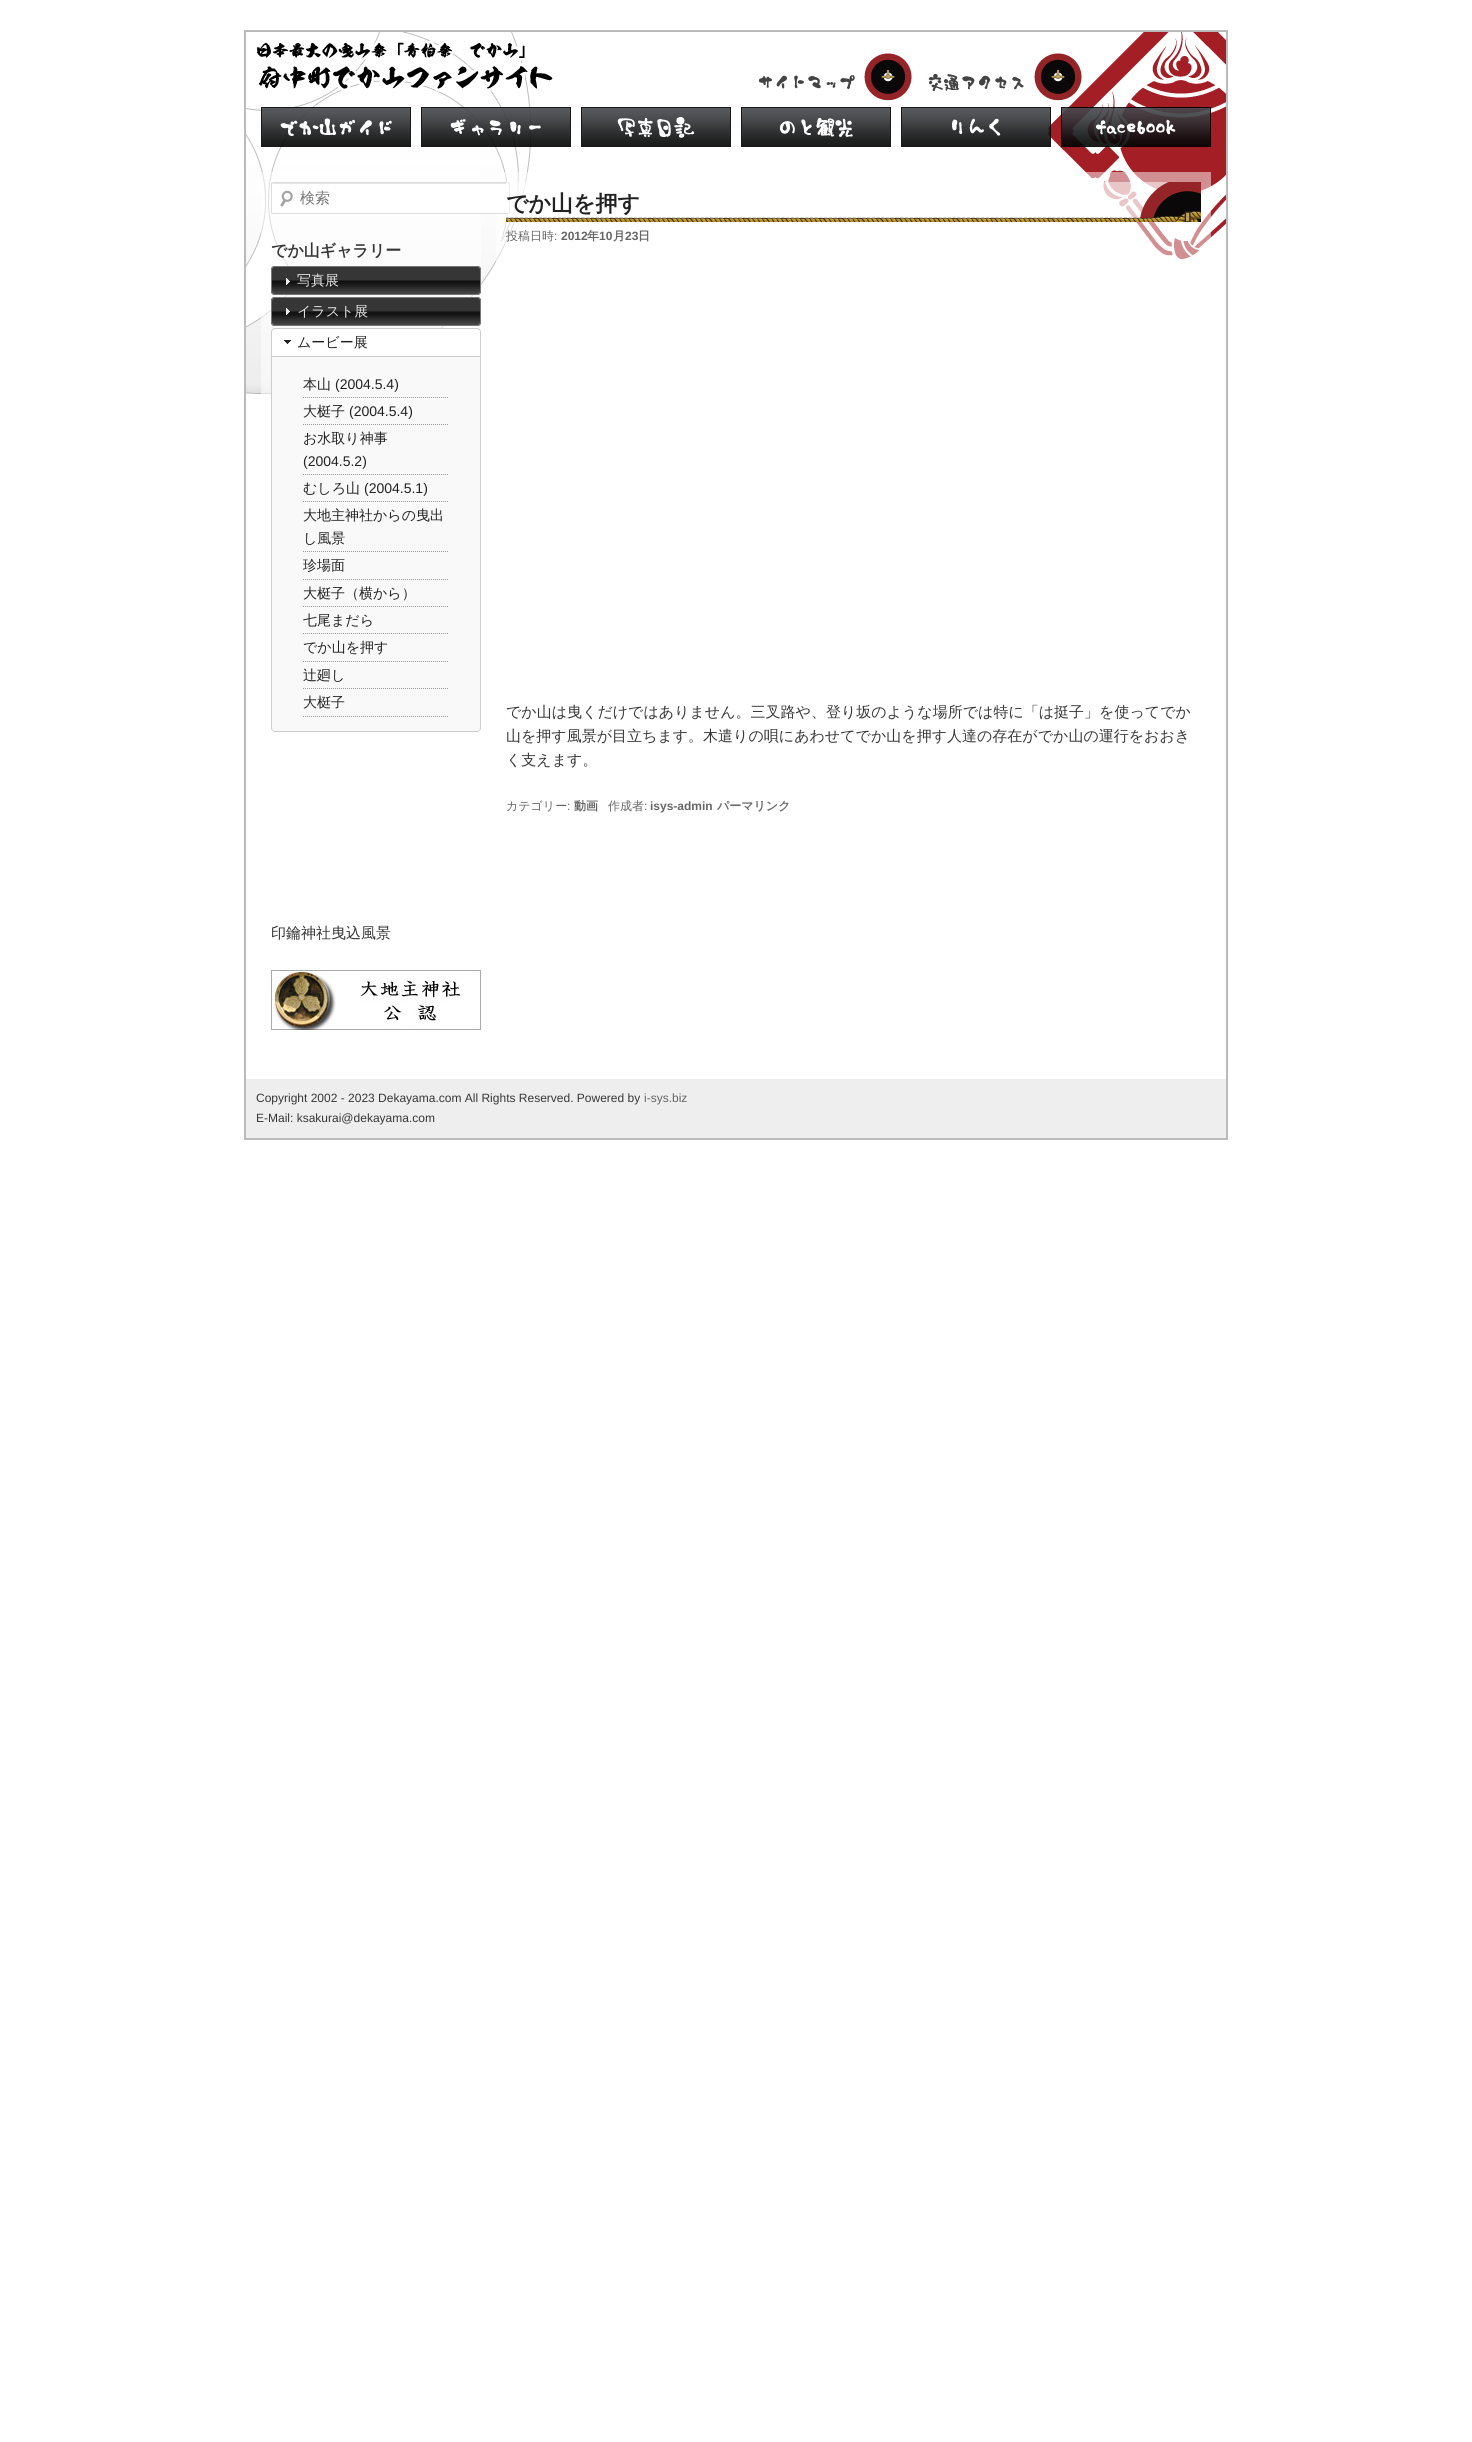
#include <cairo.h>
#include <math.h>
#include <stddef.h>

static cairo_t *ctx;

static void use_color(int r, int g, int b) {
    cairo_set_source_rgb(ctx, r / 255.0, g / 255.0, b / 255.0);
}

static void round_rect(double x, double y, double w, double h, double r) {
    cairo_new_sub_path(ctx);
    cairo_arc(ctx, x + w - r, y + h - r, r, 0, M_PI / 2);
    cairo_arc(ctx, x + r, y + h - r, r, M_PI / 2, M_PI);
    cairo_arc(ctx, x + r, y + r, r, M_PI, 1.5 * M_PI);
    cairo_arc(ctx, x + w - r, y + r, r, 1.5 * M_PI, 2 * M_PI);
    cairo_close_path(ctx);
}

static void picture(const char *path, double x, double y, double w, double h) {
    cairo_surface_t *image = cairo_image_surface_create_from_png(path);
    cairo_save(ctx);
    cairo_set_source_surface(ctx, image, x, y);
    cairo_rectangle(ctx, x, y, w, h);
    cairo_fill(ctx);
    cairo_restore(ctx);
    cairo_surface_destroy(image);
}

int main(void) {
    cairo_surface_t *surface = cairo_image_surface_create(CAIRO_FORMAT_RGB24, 1472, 2442);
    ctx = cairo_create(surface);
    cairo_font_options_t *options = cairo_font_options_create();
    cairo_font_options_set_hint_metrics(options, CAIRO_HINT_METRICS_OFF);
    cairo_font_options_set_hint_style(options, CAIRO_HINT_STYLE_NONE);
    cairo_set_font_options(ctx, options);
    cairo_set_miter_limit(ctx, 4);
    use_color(255, 255, 255);
    cairo_paint(ctx);
    picture("img1.png", 246, 32, 980, 362);
    cairo_rectangle(ctx, 245, 31, 982, 1108);
    use_color(187, 187, 187);
    cairo_stroke(ctx);
    picture("img2.png", 257, 40, 296, 52);
    picture("img3.png", 759, 53, 153, 48);
    picture("img4.png", 928, 53, 154, 48);
    picture("img5.png", 261, 107, 150, 40);
    picture("img6.png", 421, 107, 150, 40);
    picture("img7.png", 581, 107, 150, 40);
    picture("img8.png", 741, 107, 150, 40);
    picture("img9.png", 901, 107, 150, 40);
    picture("img10.png", 1061, 107, 150, 40);
    cairo_set_source_rgba(ctx, 1, 1, 1, 0.5);
    cairo_rectangle(ctx, 261, 172, 220, 222);
    cairo_fill(ctx);
    cairo_rectangle(ctx, 496, 172, 715, 90);
    cairo_fill(ctx);
    use_color(255, 255, 255);
    round_rect(271, 182, 239, 32, 2);
    cairo_fill(ctx);
    picture("img11.png", 280, 190, 13, 17);
    use_color(230, 230, 230);
    cairo_new_path(ctx);
    cairo_move_to(ctx, 273, 183);
    cairo_line_to(ctx, 272, 184);
    cairo_line_to(ctx, 508, 184);
    cairo_line_to(ctx, 509, 187);
    cairo_curve_to(ctx, 509, 186, 510, 183, 508, 183);
    cairo_close_path(ctx);
    cairo_fill(ctx);
    round_rect(271.5, 182.5, 238, 31, 1.5);
    use_color(221, 221, 221);
    cairo_set_line_width(ctx, 1);
    cairo_stroke(ctx);
    cairo_select_font_face(ctx, "WenQuanYi Zen Hei Medium", CAIRO_FONT_SLANT_NORMAL, CAIRO_FONT_WEIGHT_NORMAL);
    cairo_set_font_size(ctx, 15);
    use_color(117, 117, 117);
    cairo_move_to(ctx, 300, 203);
    cairo_show_text(ctx, "検索");
    cairo_select_font_face(ctx, "WenQuanYi Zen Hei", CAIRO_FONT_SLANT_NORMAL, CAIRO_FONT_WEIGHT_BOLD);
    cairo_set_font_size(ctx, 16);
    use_color(55, 55, 55);
    cairo_move_to(ctx, 271, 256);
    cairo_show_text(ctx, "でか山ギャラリー");
    picture("img12.png", 271, 266, 210, 29);
    round_rect(271.5, 266.5, 209, 28, 3.5);
    use_color(119, 119, 119);
    cairo_stroke(ctx);
    picture("img13.png", 286, 278, 4, 7);
    cairo_select_font_face(ctx, "WenQuanYi Zen Hei Medium", CAIRO_FONT_SLANT_NORMAL, CAIRO_FONT_WEIGHT_NORMAL);
    cairo_set_font_size(ctx, 14);
    use_color(227, 227, 227);
    cairo_move_to(ctx, 297, 285);
    cairo_show_text(ctx, "写真展");
    picture("img14.png", 271, 297, 210, 29);
    round_rect(271.5, 297.5, 209, 28, 3.5);
    use_color(119, 119, 119);
    cairo_stroke(ctx);
    picture("img15.png", 286, 308, 4, 7);
    use_color(227, 227, 227);
    cairo_move_to(ctx, 297, 316);
    cairo_show_text(ctx, "イラスト展");
    use_color(255, 255, 255);
    cairo_new_path(ctx);
    cairo_move_to(ctx, 275, 328.5);
    cairo_line_to(ctx, 477, 328.5);
    cairo_curve_to(ctx, 479, 328.5, 480.5, 330, 480.5, 332);
    cairo_line_to(ctx, 480.5, 356.5);
    cairo_line_to(ctx, 271.5, 356.5);
    cairo_line_to(ctx, 271.5, 332);
    cairo_curve_to(ctx, 271.5, 330, 273, 328.5, 275, 328.5);
    cairo_close_path(ctx);
    cairo_fill_preserve(ctx);
    use_color(204, 204, 204);
    cairo_stroke(ctx);
    picture("img16.png", 284, 340, 7, 4);
    use_color(34, 34, 34);
    cairo_move_to(ctx, 297, 347);
    cairo_show_text(ctx, "ムービー展");
    use_color(249, 249, 249);
    cairo_new_path(ctx);
    cairo_move_to(ctx, 271, 357);
    cairo_line_to(ctx, 481, 357);
    cairo_line_to(ctx, 481, 728);
    cairo_curve_to(ctx, 481, 730, 479, 732, 477, 732);
    cairo_line_to(ctx, 275, 732);
    cairo_curve_to(ctx, 273, 732, 271, 730, 271, 728);
    cairo_close_path(ctx);
    cairo_fill(ctx);
    use_color(204, 204, 204);
    cairo_set_fill_rule(ctx, CAIRO_FILL_RULE_EVEN_ODD);
    cairo_new_path(ctx);
    cairo_move_to(ctx, 271, 357);
    cairo_line_to(ctx, 481, 357);
    cairo_line_to(ctx, 481, 728);
    cairo_curve_to(ctx, 481, 730, 479, 732, 477, 732);
    cairo_line_to(ctx, 275, 732);
    cairo_curve_to(ctx, 273, 732, 271, 730, 271, 728);
    cairo_close_path(ctx);
    cairo_move_to(ctx, 272, 357);
    cairo_line_to(ctx, 480, 357);
    cairo_line_to(ctx, 480, 728);
    cairo_curve_to(ctx, 480, 730, 479, 731, 477, 731);
    cairo_line_to(ctx, 275, 731);
    cairo_curve_to(ctx, 273, 731, 272, 730, 272, 728);
    cairo_close_path(ctx);
    cairo_fill(ctx);
    cairo_new_path(ctx);
    cairo_move_to(ctx, 303, 397.5);
    cairo_line_to(ctx, 449, 397.5);
    use_color(153, 153, 153);
    cairo_set_dash(ctx, (double[]){1, 1}, 2, 0);
    cairo_stroke(ctx);
    use_color(34, 34, 34);
    cairo_move_to(ctx, 303, 389);
    cairo_show_text(ctx, "本山");
    cairo_select_font_face(ctx, "Liberation Sans", CAIRO_FONT_SLANT_NORMAL, CAIRO_FONT_WEIGHT_NORMAL);
    cairo_move_to(ctx, 335, 389);
    cairo_show_text(ctx, "(2004.5.4)");
    cairo_new_path(ctx);
    cairo_move_to(ctx, 303, 424.5);
    cairo_line_to(ctx, 449, 424.5);
    use_color(153, 153, 153);
    cairo_stroke(ctx);
    cairo_select_font_face(ctx, "WenQuanYi Zen Hei Medium", CAIRO_FONT_SLANT_NORMAL, CAIRO_FONT_WEIGHT_NORMAL);
    use_color(34, 34, 34);
    cairo_move_to(ctx, 303, 416);
    cairo_show_text(ctx, "大梃子");
    cairo_select_font_face(ctx, "Liberation Sans", CAIRO_FONT_SLANT_NORMAL, CAIRO_FONT_WEIGHT_NORMAL);
    cairo_move_to(ctx, 349, 416);
    cairo_show_text(ctx, "(2004.5.4)");
    cairo_new_path(ctx);
    cairo_move_to(ctx, 303, 474.5);
    cairo_line_to(ctx, 449, 474.5);
    use_color(153, 153, 153);
    cairo_stroke(ctx);
    cairo_select_font_face(ctx, "WenQuanYi Zen Hei Medium", CAIRO_FONT_SLANT_NORMAL, CAIRO_FONT_WEIGHT_NORMAL);
    use_color(34, 34, 34);
    cairo_move_to(ctx, 303, 443);
    cairo_show_text(ctx, "お水取り神事");
    cairo_select_font_face(ctx, "Liberation Sans", CAIRO_FONT_SLANT_NORMAL, CAIRO_FONT_WEIGHT_NORMAL);
    cairo_move_to(ctx, 303, 466);
    cairo_show_text(ctx, "(2004.5.2)");
    cairo_new_path(ctx);
    cairo_move_to(ctx, 303, 501.5);
    cairo_line_to(ctx, 449, 501.5);
    use_color(153, 153, 153);
    cairo_stroke(ctx);
    cairo_select_font_face(ctx, "WenQuanYi Zen Hei Medium", CAIRO_FONT_SLANT_NORMAL, CAIRO_FONT_WEIGHT_NORMAL);
    use_color(34, 34, 34);
    cairo_move_to(ctx, 303, 493);
    cairo_show_text(ctx, "むしろ山");
    cairo_select_font_face(ctx, "Liberation Sans", CAIRO_FONT_SLANT_NORMAL, CAIRO_FONT_WEIGHT_NORMAL);
    cairo_move_to(ctx, 364, 493);
    cairo_show_text(ctx, "(2004.5.1)");
    cairo_new_path(ctx);
    cairo_move_to(ctx, 303, 551.5);
    cairo_line_to(ctx, 449, 551.5);
    use_color(153, 153, 153);
    cairo_stroke(ctx);
    cairo_select_font_face(ctx, "WenQuanYi Zen Hei Medium", CAIRO_FONT_SLANT_NORMAL, CAIRO_FONT_WEIGHT_NORMAL);
    use_color(34, 34, 34);
    cairo_move_to(ctx, 303, 520);
    cairo_show_text(ctx, "大地主神社からの曳出");
    cairo_move_to(ctx, 303, 543);
    cairo_show_text(ctx, "し風景");
    cairo_new_path(ctx);
    cairo_move_to(ctx, 303, 579.5);
    cairo_line_to(ctx, 449, 579.5);
    use_color(153, 153, 153);
    cairo_stroke(ctx);
    use_color(34, 34, 34);
    cairo_move_to(ctx, 303, 570);
    cairo_show_text(ctx, "珍場面");
    cairo_new_path(ctx);
    cairo_move_to(ctx, 303, 606.5);
    cairo_line_to(ctx, 449, 606.5);
    use_color(153, 153, 153);
    cairo_stroke(ctx);
    use_color(34, 34, 34);
    cairo_move_to(ctx, 303, 598);
    cairo_show_text(ctx, "大梃子（横から）");
    cairo_new_path(ctx);
    cairo_move_to(ctx, 303, 633.5);
    cairo_line_to(ctx, 449, 633.5);
    use_color(153, 153, 153);
    cairo_stroke(ctx);
    use_color(34, 34, 34);
    cairo_move_to(ctx, 303, 625);
    cairo_show_text(ctx, "七尾まだら");
    cairo_new_path(ctx);
    cairo_move_to(ctx, 303, 661.5);
    cairo_line_to(ctx, 449, 661.5);
    use_color(153, 153, 153);
    cairo_stroke(ctx);
    use_color(34, 34, 34);
    cairo_move_to(ctx, 303, 652);
    cairo_show_text(ctx, "でか山を押す");
    cairo_new_path(ctx);
    cairo_move_to(ctx, 303, 688.5);
    cairo_line_to(ctx, 449, 688.5);
    use_color(153, 153, 153);
    cairo_stroke(ctx);
    use_color(34, 34, 34);
    cairo_move_to(ctx, 303, 680);
    cairo_show_text(ctx, "辻廻し");
    cairo_new_path(ctx);
    cairo_move_to(ctx, 303, 716.5);
    cairo_line_to(ctx, 449, 716.5);
    use_color(153, 153, 153);
    cairo_stroke(ctx);
    use_color(34, 34, 34);
    cairo_move_to(ctx, 303, 707);
    cairo_show_text(ctx, "大梃子");
    cairo_set_font_size(ctx, 15);
    use_color(55, 55, 55);
    cairo_move_to(ctx, 271, 938);
    cairo_show_text(ctx, "印鑰神社曳込風景");
    picture("img17.png", 271, 970, 210, 60);
    picture("img18.png", 506, 182, 695, 40);
    cairo_select_font_face(ctx, "WenQuanYi Zen Hei", CAIRO_FONT_SLANT_NORMAL, CAIRO_FONT_WEIGHT_BOLD);
    cairo_set_font_size(ctx, 22);
    use_color(34, 34, 34);
    cairo_move_to(ctx, 506, 211);
    cairo_show_text(ctx, "でか山を押す");
    cairo_select_font_face(ctx, "WenQuanYi Zen Hei Medium", CAIRO_FONT_SLANT_NORMAL, CAIRO_FONT_WEIGHT_NORMAL);
    cairo_set_font_size(ctx, 12);
    use_color(102, 102, 102);
    cairo_move_to(ctx, 506, 240);
    cairo_show_text(ctx, "投稿日時");
    cairo_select_font_face(ctx, "Liberation Sans", CAIRO_FONT_SLANT_NORMAL, CAIRO_FONT_WEIGHT_NORMAL);
    cairo_move_to(ctx, 554, 240);
    cairo_show_text(ctx, ":");
    cairo_select_font_face(ctx, "Liberation Sans", CAIRO_FONT_SLANT_NORMAL, CAIRO_FONT_WEIGHT_BOLD);
    cairo_move_to(ctx, 561, 240);
    cairo_show_text(ctx, "2012");
    cairo_select_font_face(ctx, "WenQuanYi Zen Hei", CAIRO_FONT_SLANT_NORMAL, CAIRO_FONT_WEIGHT_BOLD);
    cairo_move_to(ctx, 587, 240);
    cairo_show_text(ctx, "年");
    cairo_select_font_face(ctx, "Liberation Sans", CAIRO_FONT_SLANT_NORMAL, CAIRO_FONT_WEIGHT_BOLD);
    cairo_move_to(ctx, 599, 240);
    cairo_show_text(ctx, "10");
    cairo_select_font_face(ctx, "WenQuanYi Zen Hei", CAIRO_FONT_SLANT_NORMAL, CAIRO_FONT_WEIGHT_BOLD);
    cairo_move_to(ctx, 613, 240);
    cairo_show_text(ctx, "月");
    cairo_select_font_face(ctx, "Liberation Sans", CAIRO_FONT_SLANT_NORMAL, CAIRO_FONT_WEIGHT_BOLD);
    cairo_move_to(ctx, 625, 240);
    cairo_show_text(ctx, "23");
    cairo_select_font_face(ctx, "WenQuanYi Zen Hei", CAIRO_FONT_SLANT_NORMAL, CAIRO_FONT_WEIGHT_BOLD);
    cairo_move_to(ctx, 638, 240);
    cairo_show_text(ctx, "日");
    cairo_select_font_face(ctx, "WenQuanYi Zen Hei Medium", CAIRO_FONT_SLANT_NORMAL, CAIRO_FONT_WEIGHT_NORMAL);
    cairo_set_font_size(ctx, 15);
    use_color(55, 55, 55);
    cairo_move_to(ctx, 506, 717);
    cairo_show_text(ctx, "でか山は曳くだけではありません。三叉路や、登り坂のような場所では特に「は挺子」を使ってでか");
    cairo_move_to(ctx, 506, 741);
    cairo_show_text(ctx, "山を押す風景が目立ちます。木遣りの唄にあわせてでか山を押す人達の存在がでか山の運行をおおき");
    cairo_move_to(ctx, 506, 765);
    cairo_show_text(ctx, "く支えます。");
    cairo_set_font_size(ctx, 12);
    use_color(102, 102, 102);
    cairo_move_to(ctx, 506, 810);
    cairo_show_text(ctx, "カテゴリー");
    cairo_select_font_face(ctx, "Liberation Sans", CAIRO_FONT_SLANT_NORMAL, CAIRO_FONT_WEIGHT_NORMAL);
    cairo_move_to(ctx, 567, 810);
    cairo_show_text(ctx, ":");
    cairo_select_font_face(ctx, "WenQuanYi Zen Hei", CAIRO_FONT_SLANT_NORMAL, CAIRO_FONT_WEIGHT_BOLD);
    cairo_move_to(ctx, 574, 810);
    cairo_show_text(ctx, "動画");
    cairo_select_font_face(ctx, "WenQuanYi Zen Hei Medium", CAIRO_FONT_SLANT_NORMAL, CAIRO_FONT_WEIGHT_NORMAL);
    cairo_move_to(ctx, 608, 810);
    cairo_show_text(ctx, "作成者");
    cairo_select_font_face(ctx, "Liberation Sans", CAIRO_FONT_SLANT_NORMAL, CAIRO_FONT_WEIGHT_NORMAL);
    cairo_move_to(ctx, 644, 810);
    cairo_show_text(ctx, ":");
    cairo_select_font_face(ctx, "Liberation Sans", CAIRO_FONT_SLANT_NORMAL, CAIRO_FONT_WEIGHT_BOLD);
    cairo_move_to(ctx, 650, 810);
    cairo_show_text(ctx, "isys-admin");
    cairo_select_font_face(ctx, "WenQuanYi Zen Hei", CAIRO_FONT_SLANT_NORMAL, CAIRO_FONT_WEIGHT_BOLD);
    cairo_move_to(ctx, 717, 810);
    cairo_show_text(ctx, "パーマリンク");
    use_color(238, 238, 238);
    cairo_rectangle(ctx, 246, 1079, 980, 59);
    cairo_fill(ctx);
    cairo_select_font_face(ctx, "Liberation Sans", CAIRO_FONT_SLANT_NORMAL, CAIRO_FONT_WEIGHT_NORMAL);
    use_color(55, 55, 55);
    cairo_move_to(ctx, 256, 1102);
    cairo_show_text(ctx, "Copyright 2002 - 2023 Dekayama.com All Rights Reserved. Powered by");
    use_color(102, 102, 102);
    cairo_move_to(ctx, 644, 1102);
    cairo_show_text(ctx, "i-sys.biz");
    use_color(55, 55, 55);
    cairo_move_to(ctx, 256, 1122);
    cairo_show_text(ctx, "E-Mail: ksakurai@dekayama.com");
    cairo_surface_write_to_png(surface, "result.png");
    cairo_font_options_destroy(options);
    cairo_destroy(ctx);
    cairo_surface_destroy(surface);
    return 0;
}
